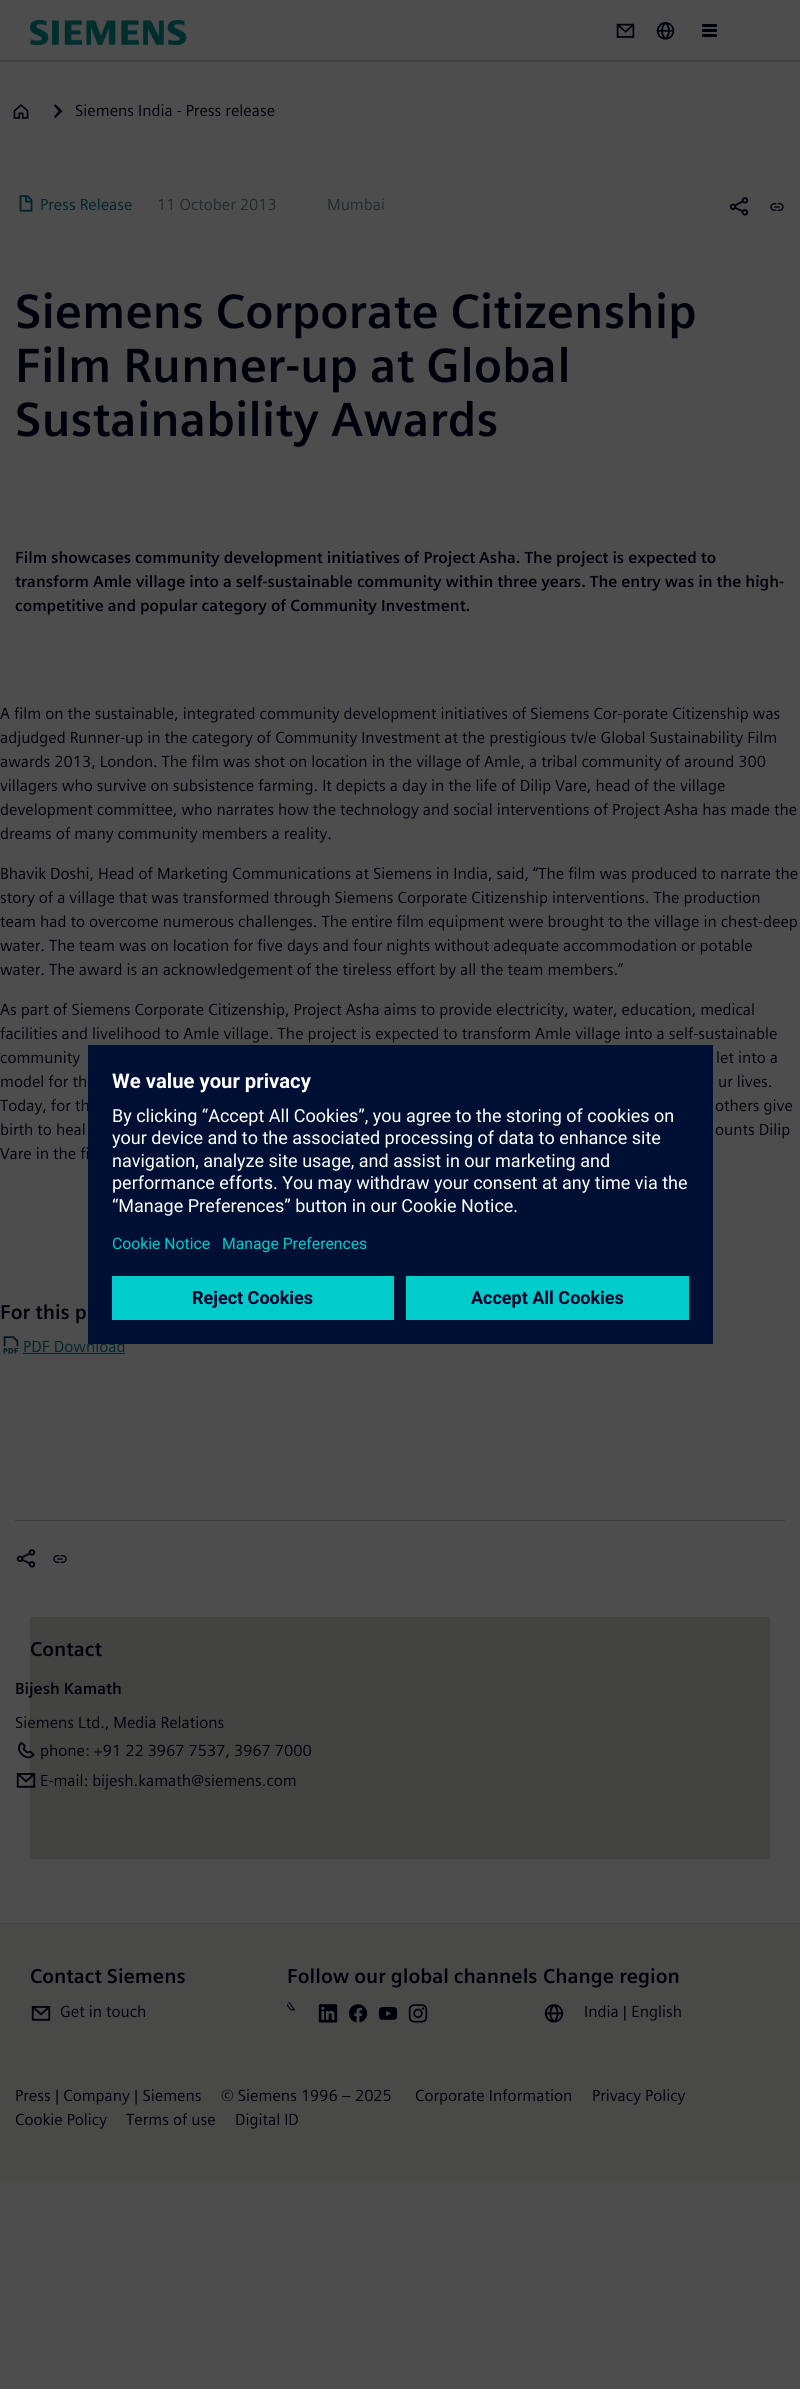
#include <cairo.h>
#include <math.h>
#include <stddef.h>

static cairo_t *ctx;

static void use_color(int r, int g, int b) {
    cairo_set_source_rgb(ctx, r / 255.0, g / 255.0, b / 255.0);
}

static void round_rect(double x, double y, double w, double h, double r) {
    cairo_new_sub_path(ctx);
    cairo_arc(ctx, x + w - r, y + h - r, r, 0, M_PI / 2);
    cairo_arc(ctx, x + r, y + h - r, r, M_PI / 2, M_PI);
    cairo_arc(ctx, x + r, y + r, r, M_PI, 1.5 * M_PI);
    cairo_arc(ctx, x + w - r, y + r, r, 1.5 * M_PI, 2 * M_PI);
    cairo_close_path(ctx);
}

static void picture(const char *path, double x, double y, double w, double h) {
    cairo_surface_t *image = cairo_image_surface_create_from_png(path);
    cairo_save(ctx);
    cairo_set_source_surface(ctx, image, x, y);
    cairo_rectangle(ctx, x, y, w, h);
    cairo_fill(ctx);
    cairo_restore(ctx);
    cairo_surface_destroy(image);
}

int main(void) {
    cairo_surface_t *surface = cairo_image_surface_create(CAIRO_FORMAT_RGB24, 800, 2389);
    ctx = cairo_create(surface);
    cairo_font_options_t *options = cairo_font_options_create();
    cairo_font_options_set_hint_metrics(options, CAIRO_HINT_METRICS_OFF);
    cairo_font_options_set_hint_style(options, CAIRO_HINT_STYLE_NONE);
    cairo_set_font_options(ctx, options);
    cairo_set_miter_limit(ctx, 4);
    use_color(77, 77, 77);
    cairo_paint(ctx);
    use_color(62, 65, 68);
    cairo_rectangle(ctx, 0, 60, 800, 2);
    cairo_fill(ctx);
    picture("img1.png", 30, 20, 157, 25);
    picture("img2.png", 616, 23, 19, 15);
    picture("img3.png", 656, 22, 19, 18);
    use_color(0, 0, 12);
    round_rect(702, 24, 15, 3, 1);
    cairo_fill(ctx);
    round_rect(702, 29, 15, 3, 1);
    cairo_fill(ctx);
    round_rect(702, 34, 15, 3, 1);
    cairo_fill(ctx);
    picture("img4.png", 13, 104, 16, 15);
    picture("img5.png", 54, 104, 9, 15);
    cairo_select_font_face(ctx, "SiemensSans", CAIRO_FONT_SLANT_NORMAL, CAIRO_FONT_WEIGHT_NORMAL);
    cairo_set_font_size(ctx, 16);
    cairo_move_to(ctx, 75, 116);
    cairo_show_text(ctx, "Siemens India - Press release");
    picture("img6.png", 19, 195, 14, 17);
    use_color(0, 36, 44);
    cairo_move_to(ctx, 40, 210);
    cairo_show_text(ctx, "Press Release");
    use_color(36, 41, 44);
    cairo_move_to(ctx, 157, 210);
    cairo_show_text(ctx, "11 October 2013");
    cairo_move_to(ctx, 327, 210);
    cairo_show_text(ctx, "Mumbai");
    picture("img7.png", 729, 197, 20, 19);
    picture("img8.png", 770, 203, 14, 8);
    cairo_select_font_face(ctx, "SiemensSans", CAIRO_FONT_SLANT_NORMAL, CAIRO_FONT_WEIGHT_BOLD);
    cairo_set_font_size(ctx, 48);
    use_color(0, 0, 12);
    cairo_move_to(ctx, 15, 328);
    cairo_show_text(ctx, "Siemens Corporate Citizenship");
    cairo_move_to(ctx, 15, 382);
    cairo_show_text(ctx, "Film Runner-up at Global");
    cairo_move_to(ctx, 15, 436);
    cairo_show_text(ctx, "Sustainability Awards");
    cairo_set_font_size(ctx, 16);
    cairo_move_to(ctx, 15, 563);
    cairo_show_text(ctx, "Film showcases community development initiatives of Project Asha. The project is expected to");
    cairo_move_to(ctx, 15, 587);
    cairo_show_text(ctx, "transform Amle village into a self-sustainable community within three years. The entry was in the high-");
    cairo_move_to(ctx, 15, 611);
    cairo_show_text(ctx, "competitive and popular category of Community Investment.");
    cairo_select_font_face(ctx, "SiemensSans", CAIRO_FONT_SLANT_NORMAL, CAIRO_FONT_WEIGHT_NORMAL);
    cairo_move_to(ctx, 0, 719);
    cairo_show_text(ctx, "A film on the sustainable, integrated community development initiatives of Siemens Cor-porate Citizenship was");
    cairo_move_to(ctx, 0, 743);
    cairo_show_text(ctx, "adjudged Runner-up in the category of Community Investment at the prestigious tv/e Global Sustainability Film");
    cairo_move_to(ctx, 0, 767);
    cairo_show_text(ctx, "awards 2013, London. The film was shot on location in the village of Amle, a tribal community of around 300");
    cairo_move_to(ctx, 0, 791);
    cairo_show_text(ctx, "villagers who survive on subsistence farming. It depicts a day in the life of Dilip Vare, head of the village");
    cairo_move_to(ctx, 0, 815);
    cairo_show_text(ctx, "development committee, who narrates how the technology and social interventions of Project Asha has made the");
    cairo_move_to(ctx, 0, 839);
    cairo_show_text(ctx, "dreams of many community members a reality.");
    cairo_move_to(ctx, 0, 879);
    cairo_show_text(ctx, "Bhavik Doshi, Head of Marketing Communications at Siemens in India, said, “The film was produced to narrate the");
    cairo_move_to(ctx, 0, 903);
    cairo_show_text(ctx, "story of a village that was transformed through Siemens Corporate Citizenship interventions. The production");
    cairo_move_to(ctx, 0, 927);
    cairo_show_text(ctx, "team had to overcome numerous challenges. The entire film equipment were brought to the village in chest-deep");
    cairo_move_to(ctx, 0, 951);
    cairo_show_text(ctx, "water. The team was on location for five days and four nights without adequate accommodation or potable");
    cairo_move_to(ctx, 0, 975);
    cairo_show_text(ctx, "water. The award is an acknowledgement of the tireless effort by all the team members.”");
    cairo_move_to(ctx, 0, 1015);
    cairo_show_text(ctx, "As part of Siemens Corporate Citizenship, Project Asha aims to provide electricity, water, education, medical");
    cairo_move_to(ctx, 0, 1039);
    cairo_show_text(ctx, "facilities and livelihood to Amle village. The project is expected to transform Amle village into a self-sustainable");
    cairo_move_to(ctx, 0, 1063);
    cairo_show_text(ctx, "community");
    cairo_move_to(ctx, 716, 1063);
    cairo_show_text(ctx, "let into a");
    cairo_move_to(ctx, 0, 1087);
    cairo_show_text(ctx, "model for th");
    cairo_move_to(ctx, 718, 1087);
    cairo_show_text(ctx, "ur lives.");
    cairo_move_to(ctx, 0, 1111);
    cairo_show_text(ctx, "Today, for th");
    cairo_move_to(ctx, 715, 1111);
    cairo_show_text(ctx, "others give");
    cairo_move_to(ctx, 0, 1135);
    cairo_show_text(ctx, "birth to heal");
    cairo_move_to(ctx, 715, 1135);
    cairo_show_text(ctx, "ounts Dilip");
    cairo_move_to(ctx, 0, 1159);
    cairo_show_text(ctx, "Vare in the fi");
    cairo_select_font_face(ctx, "SiemensSans", CAIRO_FONT_SLANT_NORMAL, CAIRO_FONT_WEIGHT_BOLD);
    cairo_set_font_size(ctx, 20);
    cairo_move_to(ctx, 0, 1319);
    cairo_show_text(ctx, "For this p");
    picture("img9.png", 3, 1336, 16, 18);
    cairo_select_font_face(ctx, "SiemensSans", CAIRO_FONT_SLANT_NORMAL, CAIRO_FONT_WEIGHT_NORMAL);
    cairo_set_font_size(ctx, 16);
    use_color(0, 36, 44);
    cairo_move_to(ctx, 23, 1352);
    cairo_show_text(ctx, "PDF Download");
    cairo_rectangle(ctx, 23, 1353, 102, 1);
    cairo_fill(ctx);
    use_color(61, 61, 61);
    cairo_rectangle(ctx, 15, 1520, 770, 1);
    cairo_fill(ctx);
    picture("img7.png", 16, 1549, 20, 19);
    picture("img8.png", 53, 1555, 14, 8);
    use_color(67, 67, 65);
    cairo_rectangle(ctx, 30, 1617, 740, 242);
    cairo_fill(ctx);
    cairo_select_font_face(ctx, "SiemensSans", CAIRO_FONT_SLANT_NORMAL, CAIRO_FONT_WEIGHT_BOLD);
    cairo_set_font_size(ctx, 20);
    use_color(0, 0, 12);
    cairo_move_to(ctx, 30, 1656);
    cairo_show_text(ctx, "Contact");
    cairo_set_font_size(ctx, 16);
    cairo_move_to(ctx, 15, 1694);
    cairo_show_text(ctx, "Bijesh Kamath");
    cairo_select_font_face(ctx, "SiemensSans", CAIRO_FONT_SLANT_NORMAL, CAIRO_FONT_WEIGHT_NORMAL);
    cairo_move_to(ctx, 15, 1728);
    cairo_show_text(ctx, "Siemens Ltd., Media Relations");
    picture("img10.png", 18, 1741, 17, 18);
    cairo_move_to(ctx, 40, 1756);
    cairo_show_text(ctx, "phone: +91 22 3967 7537, 3967 7000");
    picture("img11.png", 16, 1773, 20, 15);
    cairo_move_to(ctx, 40, 1786);
    cairo_show_text(ctx, "E-mail: bijesh.kamath@siemens.com");
    use_color(73, 73, 72);
    cairo_rectangle(ctx, 0, 1924, 800, 258);
    cairo_fill(ctx);
    use_color(69, 69, 69);
    cairo_rectangle(ctx, 0, 1923, 800, 1);
    cairo_fill(ctx);
    cairo_select_font_face(ctx, "SiemensSans", CAIRO_FONT_SLANT_NORMAL, CAIRO_FONT_WEIGHT_BOLD);
    cairo_set_font_size(ctx, 20);
    use_color(0, 0, 12);
    cairo_move_to(ctx, 30, 1983);
    cairo_show_text(ctx, "Contact Siemens");
    picture("img12.png", 31, 2006, 20, 15);
    cairo_select_font_face(ctx, "SiemensSans", CAIRO_FONT_SLANT_NORMAL, CAIRO_FONT_WEIGHT_NORMAL);
    cairo_set_font_size(ctx, 16);
    cairo_move_to(ctx, 60, 2017);
    cairo_show_text(ctx, "Get in touch");
    cairo_select_font_face(ctx, "SiemensSans", CAIRO_FONT_SLANT_NORMAL, CAIRO_FONT_WEIGHT_BOLD);
    cairo_set_font_size(ctx, 20);
    cairo_move_to(ctx, 287, 1983);
    cairo_show_text(ctx, "Follow our global channels");
    picture("img13.png", 287, 2002, 9, 9);
    picture("img14.png", 318, 2004, 20, 19);
    picture("img15.png", 348, 2004, 20, 19);
    picture("img16.png", 378, 2006, 20, 14);
    picture("img17.png", 408, 2004, 20, 19);
    cairo_move_to(ctx, 543, 1983);
    cairo_show_text(ctx, "Change region");
    picture("img18.png", 544, 2004, 20, 19);
    cairo_select_font_face(ctx, "SiemensSans", CAIRO_FONT_SLANT_NORMAL, CAIRO_FONT_WEIGHT_NORMAL);
    cairo_set_font_size(ctx, 16);
    cairo_move_to(ctx, 584, 2017);
    cairo_show_text(ctx, "India | English");
    cairo_move_to(ctx, 15, 2101);
    cairo_show_text(ctx, "Press | Company | Siemens");
    cairo_move_to(ctx, 221, 2101);
    cairo_show_text(ctx, "© Siemens 1996 – 2025");
    cairo_move_to(ctx, 415, 2101);
    cairo_show_text(ctx, "Corporate Information");
    cairo_move_to(ctx, 592, 2101);
    cairo_show_text(ctx, "Privacy Policy");
    cairo_move_to(ctx, 15, 2125);
    cairo_show_text(ctx, "Cookie Policy");
    cairo_move_to(ctx, 126, 2125);
    cairo_show_text(ctx, "Terms of use");
    cairo_move_to(ctx, 235, 2125);
    cairo_show_text(ctx, "Digital ID");
    use_color(0, 16, 52);
    cairo_rectangle(ctx, 88, 1045, 625, 299);
    cairo_fill(ctx);
    cairo_select_font_face(ctx, "Roboto", CAIRO_FONT_SLANT_NORMAL, CAIRO_FONT_WEIGHT_BOLD);
    cairo_set_font_size(ctx, 20.25);
    use_color(255, 255, 255);
    cairo_move_to(ctx, 112, 1088);
    cairo_show_text(ctx, "We value your privacy");
    cairo_select_font_face(ctx, "Roboto", CAIRO_FONT_SLANT_NORMAL, CAIRO_FONT_WEIGHT_NORMAL);
    cairo_set_font_size(ctx, 18);
    cairo_move_to(ctx, 112, 1122);
    cairo_show_text(ctx, "By clicking “Accept All Cookies”, you agree to the storing of cookies on");
    cairo_move_to(ctx, 112, 1144);
    cairo_show_text(ctx, "your device and to the associated processing of data to enhance site");
    cairo_move_to(ctx, 112, 1167);
    cairo_show_text(ctx, "navigation, analyze site usage, and assist in our marketing and");
    cairo_move_to(ctx, 112, 1189);
    cairo_show_text(ctx, "performance efforts. You may withdraw your consent at any time via the");
    cairo_move_to(ctx, 112, 1212);
    cairo_show_text(ctx, "“Manage Preferences” button in our Cookie Notice.");
    cairo_set_font_size(ctx, 15.75);
    use_color(0, 204, 204);
    cairo_move_to(ctx, 112, 1249);
    cairo_show_text(ctx, "Cookie Notice");
    cairo_move_to(ctx, 222, 1249);
    cairo_show_text(ctx, "Manage Preferences");
    cairo_rectangle(ctx, 112, 1276, 282, 44);
    cairo_fill(ctx);
    cairo_select_font_face(ctx, "Roboto", CAIRO_FONT_SLANT_NORMAL, CAIRO_FONT_WEIGHT_BOLD);
    cairo_set_font_size(ctx, 18);
    use_color(0, 0, 40);
    cairo_move_to(ctx, 192, 1304);
    cairo_show_text(ctx, "Reject Cookies");
    use_color(0, 204, 204);
    cairo_rectangle(ctx, 406, 1276, 283, 44);
    cairo_fill(ctx);
    use_color(0, 0, 40);
    cairo_move_to(ctx, 471, 1304);
    cairo_show_text(ctx, "Accept All Cookies");
    cairo_surface_write_to_png(surface, "result.png");
    cairo_font_options_destroy(options);
    cairo_destroy(ctx);
    cairo_surface_destroy(surface);
    return 0;
}
